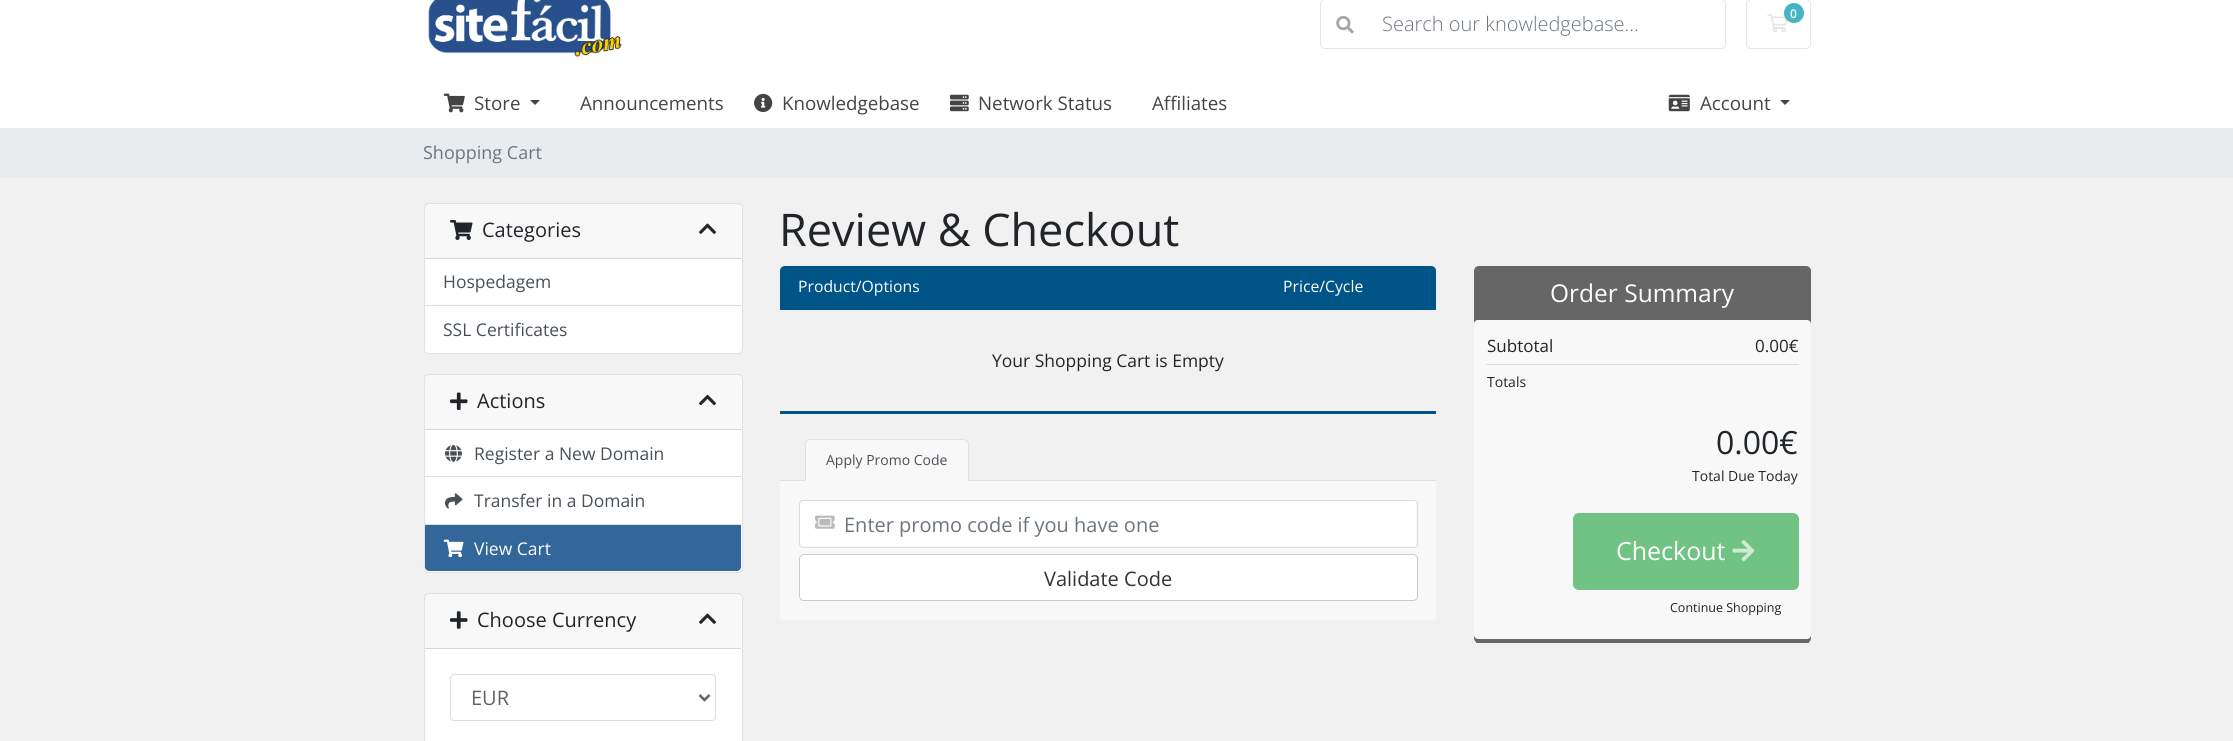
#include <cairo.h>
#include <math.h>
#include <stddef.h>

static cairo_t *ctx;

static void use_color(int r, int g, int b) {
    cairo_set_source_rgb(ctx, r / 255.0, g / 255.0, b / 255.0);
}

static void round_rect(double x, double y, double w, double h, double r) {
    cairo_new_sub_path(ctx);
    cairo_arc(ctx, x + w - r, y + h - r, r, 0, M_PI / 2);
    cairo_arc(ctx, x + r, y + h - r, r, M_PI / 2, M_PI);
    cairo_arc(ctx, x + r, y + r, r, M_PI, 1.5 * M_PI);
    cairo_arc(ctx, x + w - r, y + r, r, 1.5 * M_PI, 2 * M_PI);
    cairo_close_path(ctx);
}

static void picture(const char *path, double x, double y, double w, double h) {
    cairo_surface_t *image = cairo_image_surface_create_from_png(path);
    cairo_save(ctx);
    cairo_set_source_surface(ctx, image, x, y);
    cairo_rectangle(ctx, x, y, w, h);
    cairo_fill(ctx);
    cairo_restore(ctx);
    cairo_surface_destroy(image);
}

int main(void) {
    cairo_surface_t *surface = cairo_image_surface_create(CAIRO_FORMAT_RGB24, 2233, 741);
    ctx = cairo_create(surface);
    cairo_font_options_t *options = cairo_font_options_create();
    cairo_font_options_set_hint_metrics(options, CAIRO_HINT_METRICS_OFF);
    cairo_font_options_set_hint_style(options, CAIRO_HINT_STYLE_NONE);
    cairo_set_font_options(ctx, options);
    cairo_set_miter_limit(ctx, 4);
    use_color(241, 241, 241);
    cairo_paint(ctx);
    use_color(255, 255, 255);
    cairo_rectangle(ctx, 0, 0, 2233, 128);
    cairo_fill(ctx);
    picture("img1.png", 428, 0, 194, 57);
    round_rect(1746.5, -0.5, 64, 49, 4.5);
    use_color(229, 229, 229);
    cairo_set_line_width(ctx, 1);
    cairo_stroke(ctx);
    picture("img2.png", 1767, 14, 21, 19);
    cairo_set_source_rgba(ctx, 0.09, 0.635, 0.722, 0.8);
    cairo_arc(ctx, 1794, 13, 10, 0, 2 * M_PI);
    cairo_fill(ctx);
    cairo_select_font_face(ctx, "Open Sans SemiBold", CAIRO_FONT_SLANT_NORMAL, CAIRO_FONT_WEIGHT_NORMAL);
    cairo_set_font_size(ctx, 12);
    use_color(255, 255, 255);
    cairo_move_to(ctx, 1790, 18);
    cairo_show_text(ctx, "0");
    round_rect(1320.5, -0.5, 405, 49, 4.5);
    use_color(229, 229, 229);
    cairo_stroke(ctx);
    use_color(255, 255, 255);
    cairo_new_path(ctx);
    cairo_move_to(ctx, 1368, 0);
    cairo_line_to(ctx, 1720, 0);
    cairo_curve_to(ctx, 1723, 0, 1725, 2, 1725, 5);
    cairo_line_to(ctx, 1725, 43);
    cairo_curve_to(ctx, 1725, 46, 1723, 48, 1720, 48);
    cairo_line_to(ctx, 1368, 48);
    cairo_close_path(ctx);
    cairo_fill(ctx);
    cairo_new_path(ctx);
    cairo_move_to(ctx, 1326, 0);
    cairo_line_to(ctx, 1369, 0);
    cairo_line_to(ctx, 1369, 48);
    cairo_line_to(ctx, 1326, 48);
    cairo_curve_to(ctx, 1323, 48, 1321, 46, 1321, 43);
    cairo_line_to(ctx, 1321, 5);
    cairo_curve_to(ctx, 1321, 2, 1323, 0, 1326, 0);
    cairo_close_path(ctx);
    cairo_fill(ctx);
    picture("img3.png", 1336, 16, 18, 18);
    cairo_select_font_face(ctx, "Open Sans Light", CAIRO_FONT_SLANT_NORMAL, CAIRO_FONT_WEIGHT_NORMAL);
    cairo_set_font_size(ctx, 20);
    use_color(108, 117, 125);
    cairo_move_to(ctx, 1382, 31);
    cairo_show_text(ctx, "Search our knowledgebase...");
    picture("img4.png", 443, 93, 22, 20);
    cairo_select_font_face(ctx, "Open Sans", CAIRO_FONT_SLANT_NORMAL, CAIRO_FONT_WEIGHT_NORMAL);
    cairo_set_font_size(ctx, 18.75);
    use_color(68, 68, 68);
    cairo_move_to(ctx, 474, 110);
    cairo_show_text(ctx, "Store");
    cairo_new_path(ctx);
    cairo_move_to(ctx, 530, 100);
    cairo_line_to(ctx, 540, 100);
    cairo_line_to(ctx, 535, 105);
    cairo_close_path(ctx);
    cairo_fill(ctx);
    cairo_move_to(ctx, 580, 110);
    cairo_show_text(ctx, "Announcements");
    picture("img5.png", 754, 93, 19, 19);
    cairo_move_to(ctx, 782, 110);
    cairo_show_text(ctx, "Knowledgebase");
    picture("img6.png", 950, 94, 19, 18);
    cairo_move_to(ctx, 978, 110);
    cairo_show_text(ctx, "Network Status");
    cairo_move_to(ctx, 1152, 110);
    cairo_show_text(ctx, "Affiliates");
    picture("img7.png", 1668, 94, 22, 18);
    cairo_move_to(ctx, 1700, 110);
    cairo_show_text(ctx, "Account");
    cairo_new_path(ctx);
    cairo_move_to(ctx, 1780, 100);
    cairo_line_to(ctx, 1790, 100);
    cairo_line_to(ctx, 1785, 105);
    cairo_close_path(ctx);
    cairo_fill(ctx);
    use_color(233, 236, 239);
    cairo_rectangle(ctx, 0, 128, 2233, 50);
    cairo_fill(ctx);
    cairo_set_font_size(ctx, 18);
    use_color(108, 117, 125);
    cairo_move_to(ctx, 423, 159);
    cairo_show_text(ctx, "Shopping Cart");
    use_color(255, 255, 255);
    round_rect(424, 203, 319, 151, 5);
    cairo_fill(ctx);
    round_rect(424.5, 203.5, 318, 150, 4.5);
    cairo_set_source_rgba(ctx, 0, 0, 0, 0.12);
    cairo_stroke(ctx);
    cairo_set_source_rgba(ctx, 0, 0, 0, 0.03);
    cairo_rectangle(ctx, 425, 204, 316, 54);
    cairo_fill(ctx);
    use_color(216, 216, 216);
    cairo_rectangle(ctx, 425, 258, 316, 1);
    cairo_fill(ctx);
    picture("img8.png", 450, 220, 23, 20);
    cairo_set_font_size(ctx, 20);
    use_color(33, 37, 41);
    cairo_move_to(ctx, 482, 237);
    cairo_show_text(ctx, "Categories");
    picture("img9.png", 699, 223, 17, 11);
    use_color(223, 223, 223);
    cairo_rectangle(ctx, 425, 305, 316, 1);
    cairo_fill(ctx);
    cairo_set_font_size(ctx, 17.5);
    use_color(73, 80, 87);
    cairo_move_to(ctx, 443, 288);
    cairo_show_text(ctx, "Hospedagem");
    use_color(255, 255, 255);
    cairo_new_path(ctx);
    cairo_move_to(ctx, 425, 306);
    cairo_line_to(ctx, 741, 306);
    cairo_line_to(ctx, 741, 349);
    cairo_curve_to(ctx, 741, 351, 739, 353, 737, 353);
    cairo_line_to(ctx, 429, 353);
    cairo_curve_to(ctx, 427, 353, 425, 351, 425, 349);
    cairo_close_path(ctx);
    cairo_fill(ctx);
    use_color(73, 80, 87);
    cairo_move_to(ctx, 443, 336);
    cairo_show_text(ctx, "SSL Certificates");
    use_color(255, 255, 255);
    round_rect(424, 374, 319, 199, 5);
    cairo_fill(ctx);
    round_rect(424.5, 374.5, 318, 198, 4.5);
    cairo_set_source_rgba(ctx, 0, 0, 0, 0.12);
    cairo_stroke(ctx);
    cairo_set_source_rgba(ctx, 0, 0, 0, 0.03);
    cairo_rectangle(ctx, 425, 375, 316, 54);
    cairo_fill(ctx);
    use_color(216, 216, 216);
    cairo_rectangle(ctx, 425, 429, 316, 1);
    cairo_fill(ctx);
    picture("img10.png", 450, 392, 18, 18);
    cairo_set_font_size(ctx, 20);
    use_color(33, 37, 41);
    cairo_move_to(ctx, 477, 408);
    cairo_show_text(ctx, "Actions");
    picture("img11.png", 699, 394, 17, 12);
    use_color(223, 223, 223);
    cairo_rectangle(ctx, 425, 476, 316, 1);
    cairo_fill(ctx);
    picture("img12.png", 445, 445, 17, 17);
    cairo_set_font_size(ctx, 17.5);
    use_color(73, 80, 87);
    cairo_move_to(ctx, 474, 460);
    cairo_show_text(ctx, "Register a New Domain");
    use_color(223, 223, 223);
    cairo_rectangle(ctx, 425, 524, 316, 1);
    cairo_fill(ctx);
    picture("img13.png", 445, 493, 18, 16);
    use_color(73, 80, 87);
    cairo_move_to(ctx, 474, 507);
    cairo_show_text(ctx, "Transfer in a Domain");
    use_color(51, 102, 153);
    cairo_new_path(ctx);
    cairo_move_to(ctx, 425, 525);
    cairo_line_to(ctx, 741, 525);
    cairo_line_to(ctx, 741, 567);
    cairo_curve_to(ctx, 741, 569, 739, 571, 737, 571);
    cairo_line_to(ctx, 429, 571);
    cairo_curve_to(ctx, 427, 571, 425, 569, 425, 567);
    cairo_close_path(ctx);
    cairo_fill(ctx);
    picture("img14.png", 443, 539, 21, 19);
    use_color(255, 255, 255);
    cairo_move_to(ctx, 474, 555);
    cairo_show_text(ctx, "View Cart");
    round_rect(424, 593, 319, 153, 5);
    cairo_fill(ctx);
    round_rect(424.5, 593.5, 318, 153, 4.5);
    cairo_set_source_rgba(ctx, 0, 0, 0, 0.12);
    cairo_stroke(ctx);
    cairo_set_source_rgba(ctx, 0, 0, 0, 0.03);
    cairo_rectangle(ctx, 425, 594, 316, 54);
    cairo_fill(ctx);
    use_color(216, 216, 216);
    cairo_rectangle(ctx, 425, 648, 316, 1);
    cairo_fill(ctx);
    picture("img15.png", 450, 611, 18, 18);
    cairo_set_font_size(ctx, 20);
    use_color(33, 37, 41);
    cairo_move_to(ctx, 477, 627);
    cairo_show_text(ctx, "Choose Currency");
    picture("img9.png", 699, 613, 17, 11);
    round_rect(450.5, 674.5, 265, 46, 3.5);
    use_color(221, 221, 221);
    cairo_stroke(ctx);
    cairo_new_path(ctx);
    cairo_move_to(ctx, 699.5, 695);
    cairo_line_to(ctx, 704.5, 700);
    cairo_line_to(ctx, 709.5, 695);
    use_color(98, 98, 98);
    cairo_set_line_width(ctx, 2.5);
    cairo_stroke(ctx);
    cairo_move_to(ctx, 471, 705);
    cairo_show_text(ctx, "EUR");
    cairo_set_font_size(ctx, 45);
    use_color(33, 37, 41);
    cairo_move_to(ctx, 779, 246);
    cairo_show_text(ctx, "Review & Checkout");
    use_color(0, 85, 136);
    cairo_new_path(ctx);
    cairo_move_to(ctx, 785, 266);
    cairo_line_to(ctx, 1431, 266);
    cairo_curve_to(ctx, 1434, 266, 1436, 268, 1436, 271);
    cairo_line_to(ctx, 1436, 310);
    cairo_line_to(ctx, 780, 310);
    cairo_line_to(ctx, 780, 271);
    cairo_curve_to(ctx, 780, 268, 782, 266, 785, 266);
    cairo_close_path(ctx);
    cairo_fill(ctx);
    cairo_set_font_size(ctx, 15.75);
    use_color(255, 255, 255);
    cairo_move_to(ctx, 798, 292);
    cairo_show_text(ctx, "Product/Options");
    cairo_move_to(ctx, 1283, 292);
    cairo_show_text(ctx, "Price/Cycle");
    use_color(0, 85, 136);
    cairo_rectangle(ctx, 780, 411, 656, 3);
    cairo_fill(ctx);
    cairo_set_font_size(ctx, 17.5);
    use_color(33, 37, 41);
    cairo_move_to(ctx, 992, 367);
    cairo_show_text(ctx, "Your Shopping Cart is Empty");
    use_color(222, 226, 230);
    cairo_rectangle(ctx, 780, 480, 656, 1);
    cairo_fill(ctx);
    use_color(248, 248, 248);
    cairo_new_path(ctx);
    cairo_move_to(ctx, 810, 439);
    cairo_line_to(ctx, 964, 439);
    cairo_curve_to(ctx, 967, 439, 969, 441, 969, 444);
    cairo_line_to(ctx, 969, 481);
    cairo_line_to(ctx, 805, 481);
    cairo_line_to(ctx, 805, 444);
    cairo_curve_to(ctx, 805, 441, 807, 439, 810, 439);
    cairo_close_path(ctx);
    cairo_fill(ctx);
    use_color(222, 226, 230);
    cairo_new_path(ctx);
    cairo_move_to(ctx, 810, 439);
    cairo_curve_to(ctx, 809, 439, 807, 439, 807, 440);
    cairo_line_to(ctx, 807, 441);
    cairo_line_to(ctx, 810, 440);
    cairo_line_to(ctx, 964, 440);
    cairo_line_to(ctx, 966, 441);
    cairo_line_to(ctx, 967, 440);
    cairo_line_to(ctx, 964, 439);
    cairo_close_path(ctx);
    cairo_fill(ctx);
    cairo_new_path(ctx);
    cairo_move_to(ctx, 967, 440);
    cairo_line_to(ctx, 969, 442);
    cairo_line_to(ctx, 969, 481);
    cairo_line_to(ctx, 968, 480);
    cairo_line_to(ctx, 968, 444);
    cairo_curve_to(ctx, 968, 443, 967, 442, 966, 441);
    cairo_close_path(ctx);
    cairo_fill(ctx);
    cairo_new_path(ctx);
    cairo_move_to(ctx, 805, 444);
    cairo_line_to(ctx, 805, 481);
    cairo_line_to(ctx, 806, 480);
    cairo_line_to(ctx, 806, 444);
    cairo_curve_to(ctx, 806, 443, 807, 442, 807, 441);
    cairo_line_to(ctx, 807, 440);
    cairo_curve_to(ctx, 806, 441, 805, 442, 805, 444);
    cairo_close_path(ctx);
    cairo_fill(ctx);
    cairo_set_font_size(ctx, 14);
    use_color(73, 80, 87);
    cairo_move_to(ctx, 826, 465);
    cairo_show_text(ctx, "Apply Promo Code");
    use_color(248, 248, 248);
    cairo_rectangle(ctx, 780, 481, 656, 139);
    cairo_fill(ctx);
    use_color(255, 255, 255);
    round_rect(800, 501, 616, 45, 2.5);
    cairo_fill(ctx);
    round_rect(799.5, 500.5, 618, 47, 3.5);
    use_color(221, 221, 221);
    cairo_set_line_width(ctx, 1);
    cairo_stroke(ctx);
    picture("img16.png", 815, 515, 20, 14);
    cairo_set_font_size(ctx, 20);
    use_color(108, 117, 125);
    cairo_move_to(ctx, 844, 532);
    cairo_show_text(ctx, "Enter promo code if you have one");
    use_color(255, 255, 255);
    round_rect(799.5, 554.5, 618, 46, 4.5);
    cairo_fill_preserve(ctx);
    use_color(204, 204, 204);
    cairo_stroke(ctx);
    use_color(51, 51, 51);
    cairo_move_to(ctx, 1044, 586);
    cairo_show_text(ctx, "Validate Code");
    use_color(102, 102, 102);
    round_rect(1474, 266, 337, 377, 5);
    cairo_fill(ctx);
    cairo_rectangle(ctx, 1476, 642, 333, 1);
    cairo_fill(ctx);
    cairo_set_font_size(ctx, 24.5);
    use_color(255, 255, 255);
    cairo_move_to(ctx, 1550, 302);
    cairo_show_text(ctx, "Order Summary");
    use_color(248, 248, 248);
    round_rect(1474, 320, 337, 319, 4);
    cairo_fill(ctx);
    use_color(221, 221, 221);
    cairo_rectangle(ctx, 1486, 364, 313, 1);
    cairo_fill(ctx);
    cairo_set_font_size(ctx, 17);
    use_color(33, 37, 41);
    cairo_move_to(ctx, 1487, 352);
    cairo_show_text(ctx, "Subtotal");
    cairo_move_to(ctx, 1755, 352);
    cairo_show_text(ctx, "0.00€");
    cairo_set_font_size(ctx, 14);
    cairo_move_to(ctx, 1487, 387);
    cairo_show_text(ctx, "Totals");
    cairo_set_font_size(ctx, 32);
    cairo_move_to(ctx, 1716, 454);
    cairo_show_text(ctx, "0.00€");
    cairo_set_font_size(ctx, 14);
    cairo_move_to(ctx, 1692, 481);
    cairo_show_text(ctx, "Total Due Today");
    use_color(113, 195, 132);
    round_rect(1573.5, 513.5, 225, 76, 5.5);
    cairo_fill_preserve(ctx);
    cairo_stroke(ctx);
    cairo_set_font_size(ctx, 25);
    use_color(255, 255, 255);
    cairo_move_to(ctx, 1616, 560);
    cairo_show_text(ctx, "Checkout");
    picture("img17.png", 1732, 540, 23, 22);
    cairo_set_font_size(ctx, 12.5);
    use_color(34, 34, 34);
    cairo_move_to(ctx, 1670, 612);
    cairo_show_text(ctx, "Continue Shopping");
    cairo_surface_write_to_png(surface, "result.png");
    cairo_font_options_destroy(options);
    cairo_destroy(ctx);
    cairo_surface_destroy(surface);
    return 0;
}
